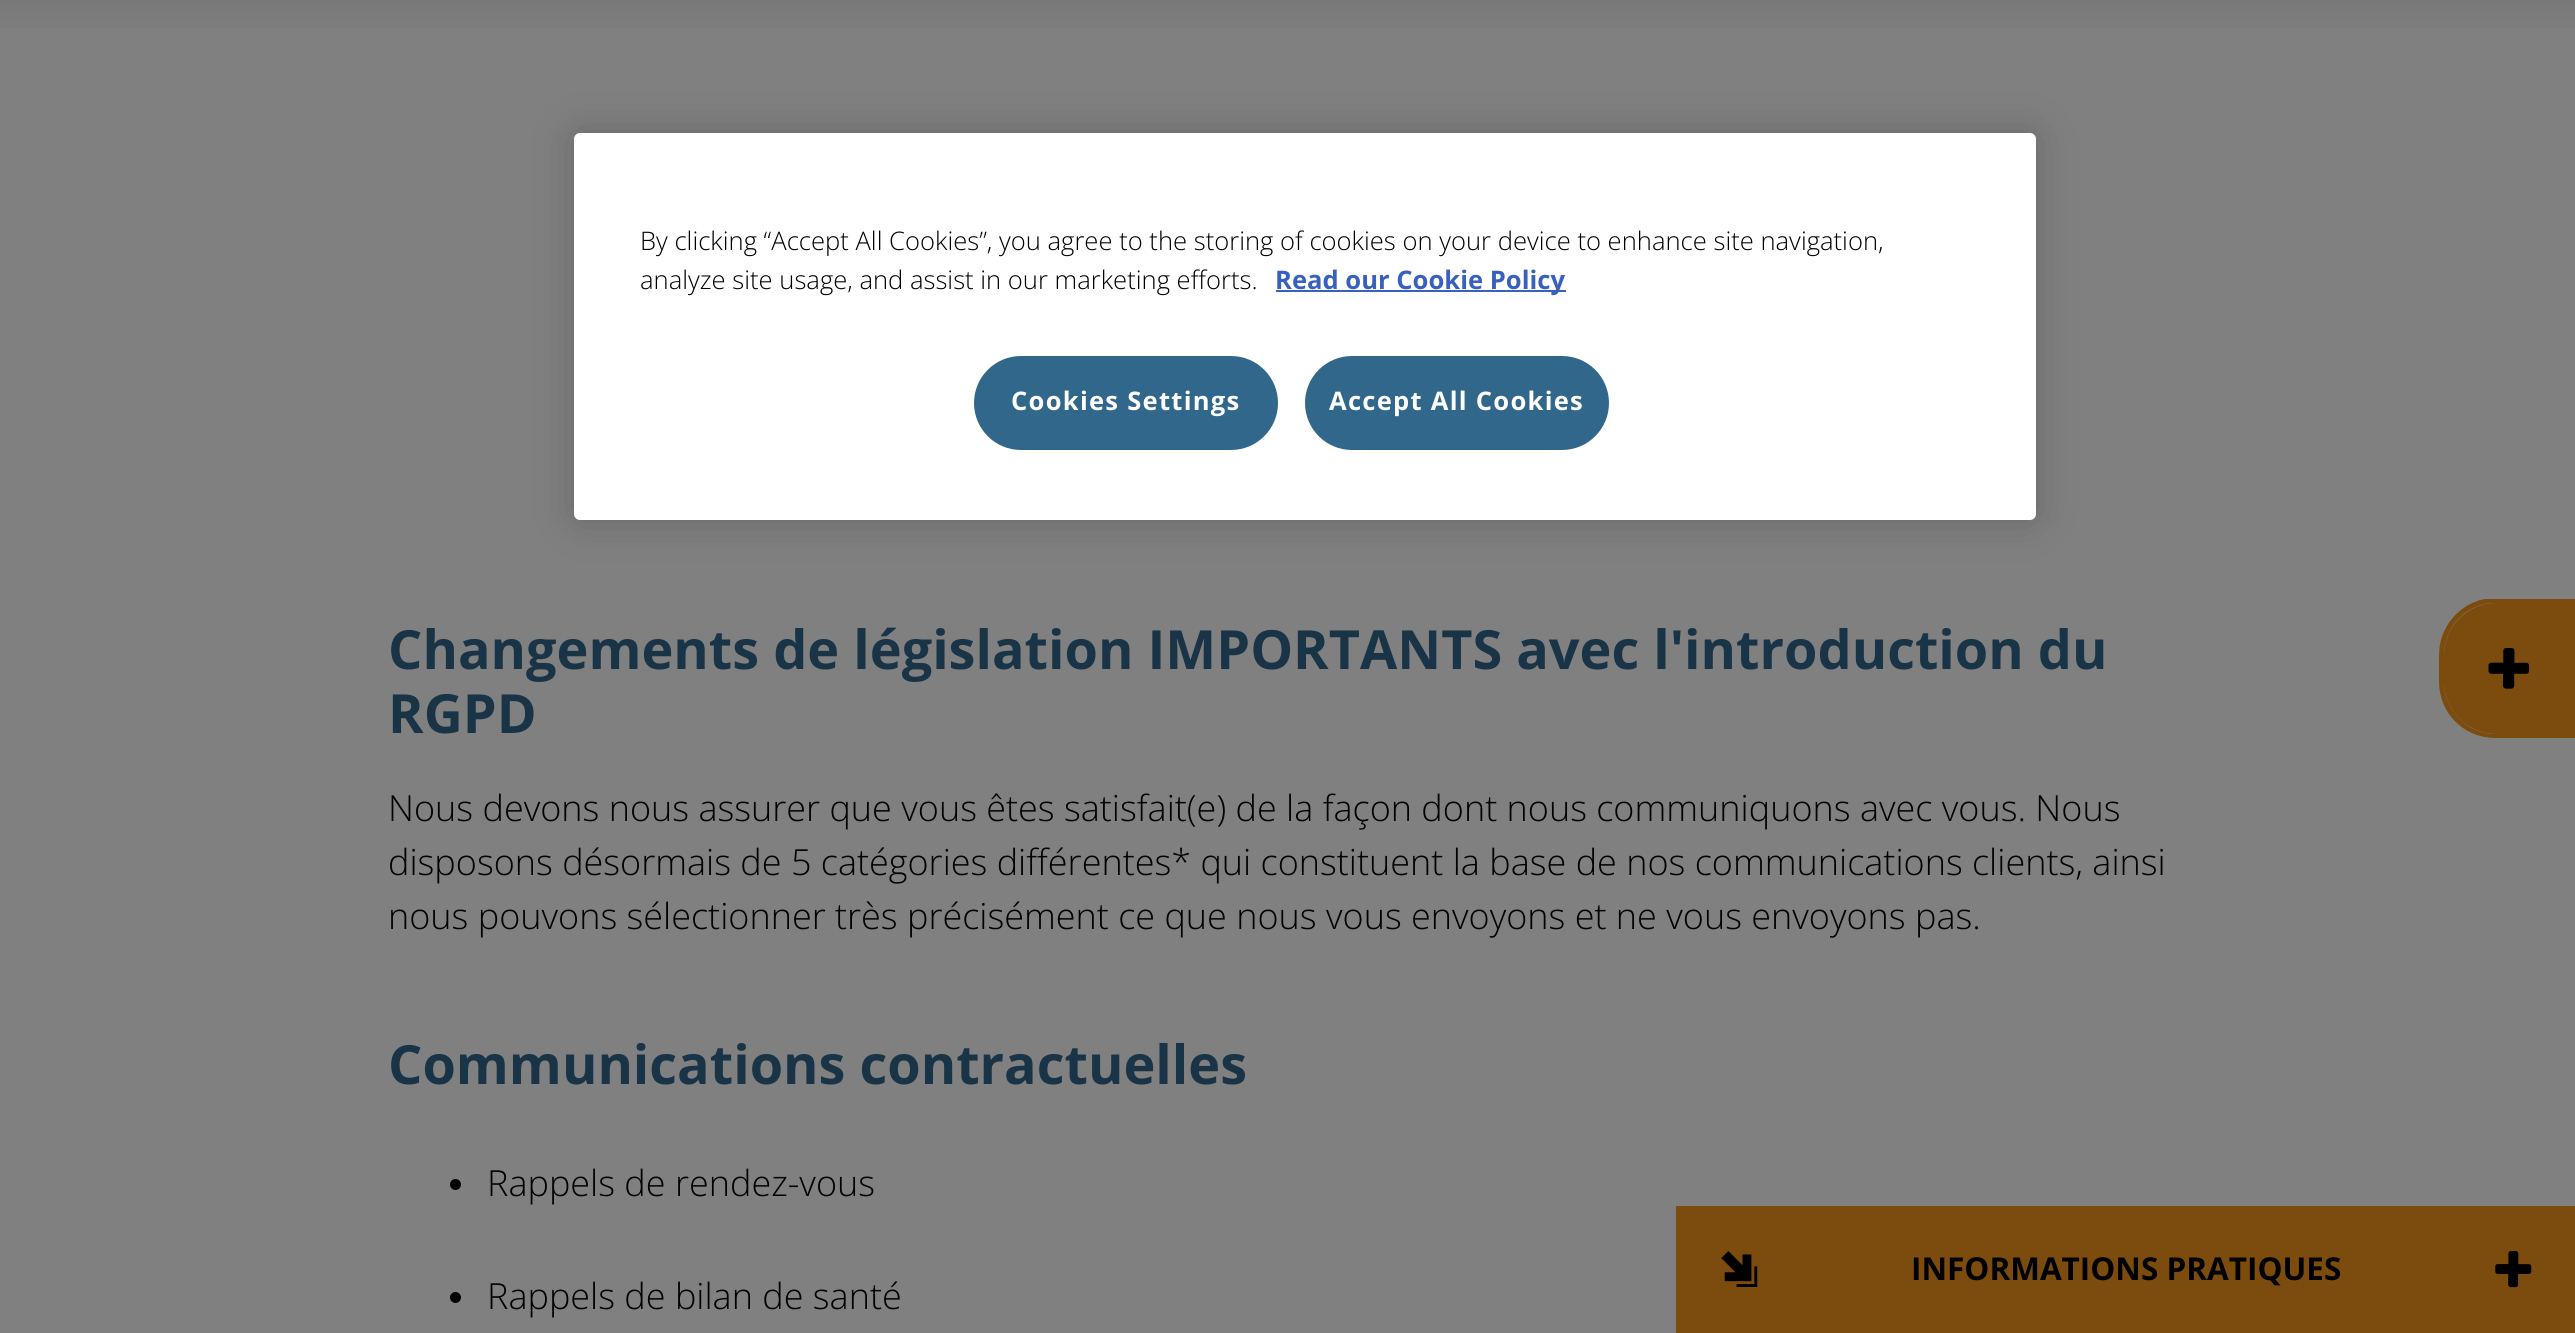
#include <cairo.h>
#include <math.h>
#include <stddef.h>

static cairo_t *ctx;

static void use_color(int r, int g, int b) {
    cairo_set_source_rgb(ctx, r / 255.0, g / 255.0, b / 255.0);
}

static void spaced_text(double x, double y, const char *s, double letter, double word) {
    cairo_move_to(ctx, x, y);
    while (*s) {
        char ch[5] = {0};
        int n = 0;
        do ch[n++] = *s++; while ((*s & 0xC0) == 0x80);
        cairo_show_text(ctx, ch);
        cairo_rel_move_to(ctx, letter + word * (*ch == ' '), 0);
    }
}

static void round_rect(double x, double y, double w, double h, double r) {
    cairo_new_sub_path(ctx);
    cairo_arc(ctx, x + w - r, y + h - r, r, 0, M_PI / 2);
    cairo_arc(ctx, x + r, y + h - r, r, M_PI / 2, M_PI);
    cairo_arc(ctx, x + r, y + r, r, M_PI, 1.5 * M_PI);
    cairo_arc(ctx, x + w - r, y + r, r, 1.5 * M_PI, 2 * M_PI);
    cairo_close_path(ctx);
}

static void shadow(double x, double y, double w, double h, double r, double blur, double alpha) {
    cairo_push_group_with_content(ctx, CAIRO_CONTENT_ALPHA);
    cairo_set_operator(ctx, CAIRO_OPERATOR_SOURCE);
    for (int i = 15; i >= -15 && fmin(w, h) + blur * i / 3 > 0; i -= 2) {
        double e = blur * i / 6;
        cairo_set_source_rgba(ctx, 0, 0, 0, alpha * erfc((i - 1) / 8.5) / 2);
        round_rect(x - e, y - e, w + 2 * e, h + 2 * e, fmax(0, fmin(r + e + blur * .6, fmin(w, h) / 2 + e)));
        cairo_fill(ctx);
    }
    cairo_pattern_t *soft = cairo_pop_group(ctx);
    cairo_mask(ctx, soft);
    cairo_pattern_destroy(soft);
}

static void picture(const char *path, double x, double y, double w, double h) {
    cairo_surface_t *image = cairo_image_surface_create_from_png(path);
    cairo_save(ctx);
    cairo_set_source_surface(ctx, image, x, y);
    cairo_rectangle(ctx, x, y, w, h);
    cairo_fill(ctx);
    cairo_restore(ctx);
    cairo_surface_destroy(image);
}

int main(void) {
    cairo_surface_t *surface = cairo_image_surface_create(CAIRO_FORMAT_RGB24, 2575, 1333);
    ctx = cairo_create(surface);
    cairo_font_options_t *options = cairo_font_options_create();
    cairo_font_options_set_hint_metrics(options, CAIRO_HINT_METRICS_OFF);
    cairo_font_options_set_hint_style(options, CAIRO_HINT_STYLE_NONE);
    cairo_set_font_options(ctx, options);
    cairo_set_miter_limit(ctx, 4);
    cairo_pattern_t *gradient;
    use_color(128, 128, 128);
    cairo_paint(ctx);
    use_color(0, 0, 0);
    shadow(574, 133, 1462, 387, 6, 20, 0.2);
    use_color(255, 255, 255);
    round_rect(574, 133, 1462, 387, 6);
    cairo_fill(ctx);
    cairo_select_font_face(ctx, "Open Sans Light", CAIRO_FONT_SLANT_NORMAL, CAIRO_FONT_WEIGHT_NORMAL);
    cairo_set_font_size(ctx, 25.6);
    use_color(0, 0, 0);
    cairo_move_to(ctx, 640, 250);
    cairo_show_text(ctx, "By clicking “Accept All Cookies”, you agree to the storing of cookies on your device to enhance site navigation,");
    cairo_move_to(ctx, 640, 289);
    cairo_show_text(ctx, "analyze site usage, and assist in our marketing efforts.");
    use_color(56, 96, 190);
    cairo_rectangle(ctx, 1276, 290, 290, 2);
    cairo_fill(ctx);
    cairo_select_font_face(ctx, "Open Sans", CAIRO_FONT_SLANT_NORMAL, CAIRO_FONT_WEIGHT_BOLD);
    cairo_move_to(ctx, 1275, 289);
    cairo_show_text(ctx, "Read our Cookie Policy");
    use_color(49, 103, 139);
    round_rect(975, 357, 302, 92, 46);
    cairo_fill_preserve(ctx);
    cairo_stroke(ctx);
    use_color(255, 255, 255);
    spaced_text(1011, 410, "Cookies Settings", 1.25, 0);
    use_color(49, 103, 139);
    round_rect(1306, 357, 302, 92, 46);
    cairo_fill_preserve(ctx);
    cairo_stroke(ctx);
    use_color(255, 255, 255);
    spaced_text(1329, 410, "Accept All Cookies", 1.25, 0);
    gradient = cairo_pattern_create_linear(1288, -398, 1288, 41);
    cairo_pattern_add_color_stop_rgba(gradient, 0, 0.176, 0.176, 0.176, 1);
    cairo_pattern_add_color_stop_rgba(gradient, 1, 0.502, 0.502, 0.502, 1);
    cairo_set_source(ctx, gradient);
    cairo_pattern_destroy(gradient);
    cairo_rectangle(ctx, 0, 0, 2575, 28);
    cairo_fill(ctx);
    cairo_set_font_size(ctx, 54);
    use_color(25, 52, 70);
    cairo_move_to(ctx, 388, 669);
    cairo_show_text(ctx, "Changements de législation IMPORTANTS avec l'introduction du");
    cairo_move_to(ctx, 388, 733);
    cairo_show_text(ctx, "RGPD");
    cairo_select_font_face(ctx, "Open Sans Light", CAIRO_FONT_SLANT_NORMAL, CAIRO_FONT_WEIGHT_NORMAL);
    cairo_set_font_size(ctx, 36);
    use_color(0, 0, 0);
    cairo_move_to(ctx, 388, 821);
    cairo_show_text(ctx, "Nous devons nous assurer que vous êtes satisfait(e) de la façon dont nous communiquons avec vous. Nous");
    cairo_move_to(ctx, 388, 875);
    cairo_show_text(ctx, "disposons désormais de 5 catégories différentes* qui constituent la base de nos communications clients, ainsi");
    cairo_move_to(ctx, 388, 929);
    cairo_show_text(ctx, "nous pouvons sélectionner très précisément ce que nous vous envoyons et ne vous envoyons pas.");
    cairo_select_font_face(ctx, "Open Sans", CAIRO_FONT_SLANT_NORMAL, CAIRO_FONT_WEIGHT_BOLD);
    cairo_set_font_size(ctx, 54);
    use_color(25, 52, 70);
    cairo_move_to(ctx, 388, 1084);
    cairo_show_text(ctx, "Communications contractuelles");
    use_color(0, 0, 0);
    cairo_new_path(ctx);
    cairo_arc(ctx, 455.5, 1184.5, 5.5, 0, 2 * M_PI);
    cairo_fill(ctx);
    cairo_select_font_face(ctx, "Open Sans Light", CAIRO_FONT_SLANT_NORMAL, CAIRO_FONT_WEIGHT_NORMAL);
    cairo_set_font_size(ctx, 36);
    cairo_move_to(ctx, 487, 1196);
    cairo_show_text(ctx, "Rappels de rendez-vous");
    cairo_new_path(ctx);
    cairo_arc(ctx, 455.5, 1297.5, 5.5, 0, 2 * M_PI);
    cairo_fill(ctx);
    cairo_move_to(ctx, 487, 1309);
    cairo_show_text(ctx, "Rappels de bilan de santé");
    use_color(124, 76, 15);
    cairo_new_path(ctx);
    cairo_move_to(ctx, 2496, 603);
    cairo_line_to(ctx, 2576, 603);
    cairo_line_to(ctx, 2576, 734);
    cairo_line_to(ctx, 2496, 734);
    cairo_curve_to(ctx, 2467.5, 734, 2444, 710.5, 2444, 682);
    cairo_line_to(ctx, 2444, 655);
    cairo_curve_to(ctx, 2444, 626.5, 2467.5, 603, 2496, 603);
    cairo_close_path(ctx);
    cairo_fill(ctx);
    cairo_save(ctx);
    cairo_rectangle(ctx, 2439, 599, 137, 139);
    cairo_clip(ctx);
    cairo_set_fill_rule(ctx, CAIRO_FILL_RULE_EVEN_ODD);
    cairo_new_path(ctx);
    cairo_move_to(ctx, 2495, 598);
    cairo_line_to(ctx, 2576, 598);
    cairo_line_to(ctx, 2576, 738);
    cairo_line_to(ctx, 2495, 738);
    cairo_curve_to(ctx, 2464, 738, 2439, 713, 2439, 682);
    cairo_line_to(ctx, 2439, 655);
    cairo_curve_to(ctx, 2439, 624, 2464, 598, 2495, 598);
    cairo_close_path(ctx);
    cairo_move_to(ctx, 2495, 603);
    cairo_line_to(ctx, 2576, 603);
    cairo_line_to(ctx, 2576, 734);
    cairo_line_to(ctx, 2495, 734);
    cairo_curve_to(ctx, 2467, 734, 2444, 710, 2444, 682);
    cairo_line_to(ctx, 2444, 655);
    cairo_curve_to(ctx, 2444, 626, 2467, 603, 2495, 603);
    cairo_close_path(ctx);
    cairo_fill(ctx);
    cairo_restore(ctx);
    picture("img1.png", 2488, 648, 41, 41);
    cairo_rectangle(ctx, 1676, 1206, 899, 127);
    cairo_fill(ctx);
    picture("img2.png", 1721, 1251, 37, 36);
    cairo_select_font_face(ctx, "Open Sans", CAIRO_FONT_SLANT_NORMAL, CAIRO_FONT_WEIGHT_BOLD);
    cairo_set_font_size(ctx, 31.5);
    use_color(0, 0, 0);
    cairo_move_to(ctx, 1911, 1280);
    cairo_show_text(ctx, "INFORMATIONS PRATIQUES");
    picture("img3.png", 2495, 1251, 37, 37);
    cairo_surface_write_to_png(surface, "result.png");
    cairo_font_options_destroy(options);
    cairo_destroy(ctx);
    cairo_surface_destroy(surface);
    return 0;
}
